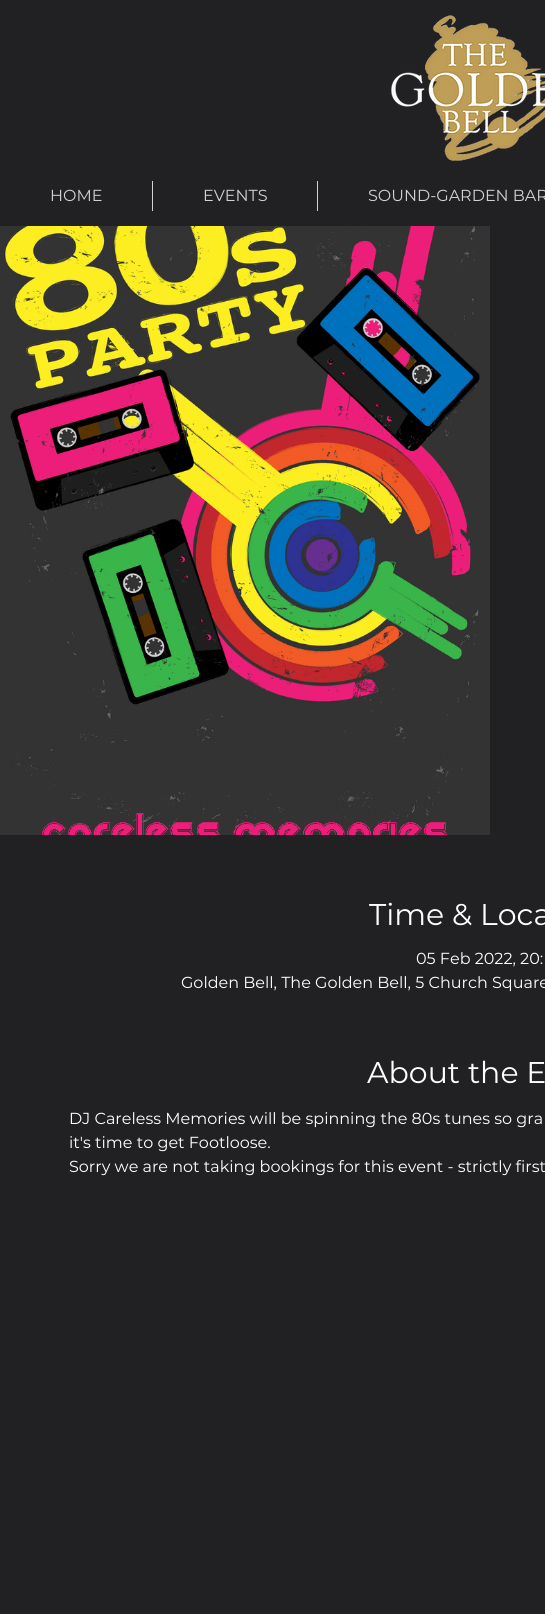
#include <cairo.h>
#include <math.h>
#include <stddef.h>

static cairo_t *ctx;

static void use_color(int r, int g, int b) {
    cairo_set_source_rgb(ctx, r / 255.0, g / 255.0, b / 255.0);
}

static void picture(const char *path, double x, double y, double w, double h) {
    cairo_surface_t *image = cairo_image_surface_create_from_png(path);
    cairo_save(ctx);
    cairo_set_source_surface(ctx, image, x, y);
    cairo_rectangle(ctx, x, y, w, h);
    cairo_fill(ctx);
    cairo_restore(ctx);
    cairo_surface_destroy(image);
}

int main(void) {
    cairo_surface_t *surface = cairo_image_surface_create(CAIRO_FORMAT_RGB24, 545, 1614);
    ctx = cairo_create(surface);
    cairo_font_options_t *options = cairo_font_options_create();
    cairo_font_options_set_hint_metrics(options, CAIRO_HINT_METRICS_OFF);
    cairo_font_options_set_hint_style(options, CAIRO_HINT_STYLE_NONE);
    cairo_set_font_options(ctx, options);
    cairo_set_miter_limit(ctx, 4);
    use_color(33, 32, 35);
    cairo_paint(ctx);
    picture("img1.png", 391, 15, 154, 146);
    cairo_select_font_face(ctx, "Montserrat", CAIRO_FONT_SLANT_NORMAL, CAIRO_FONT_WEIGHT_NORMAL);
    cairo_set_font_size(ctx, 16);
    use_color(210, 210, 210);
    cairo_move_to(ctx, 50, 201);
    cairo_show_text(ctx, "HOME");
    cairo_rectangle(ctx, 152, 181, 1, 30);
    cairo_fill(ctx);
    cairo_move_to(ctx, 203, 201);
    cairo_show_text(ctx, "EVENTS");
    cairo_rectangle(ctx, 317, 181, 1, 30);
    cairo_fill(ctx);
    cairo_move_to(ctx, 368, 201);
    cairo_show_text(ctx, "SOUND-GARDEN BAR");
    picture("img2.png", 0, 226, 490, 609);
    cairo_set_font_size(ctx, 30);
    use_color(255, 255, 255);
    cairo_move_to(ctx, 369, 925);
    cairo_show_text(ctx, "Time & Loca");
    cairo_set_font_size(ctx, 16);
    cairo_move_to(ctx, 416, 964);
    cairo_show_text(ctx, "05 Feb 2022, 20:");
    cairo_move_to(ctx, 181, 988);
    cairo_show_text(ctx, "Golden Bell, The Golden Bell, 5 Church Square");
    cairo_set_font_size(ctx, 30);
    cairo_move_to(ctx, 367, 1083);
    cairo_show_text(ctx, "About the E");
    cairo_set_font_size(ctx, 16);
    cairo_move_to(ctx, 69, 1124);
    cairo_show_text(ctx, "DJ Careless Memories will be spinning the 80s tunes so gra");
    cairo_move_to(ctx, 69, 1148);
    cairo_show_text(ctx, "it's time to get Footloose.");
    cairo_move_to(ctx, 69, 1172);
    cairo_show_text(ctx, "Sorry we are not taking bookings for this event - strictly first");
    cairo_surface_write_to_png(surface, "result.png");
    cairo_font_options_destroy(options);
    cairo_destroy(ctx);
    cairo_surface_destroy(surface);
    return 0;
}
